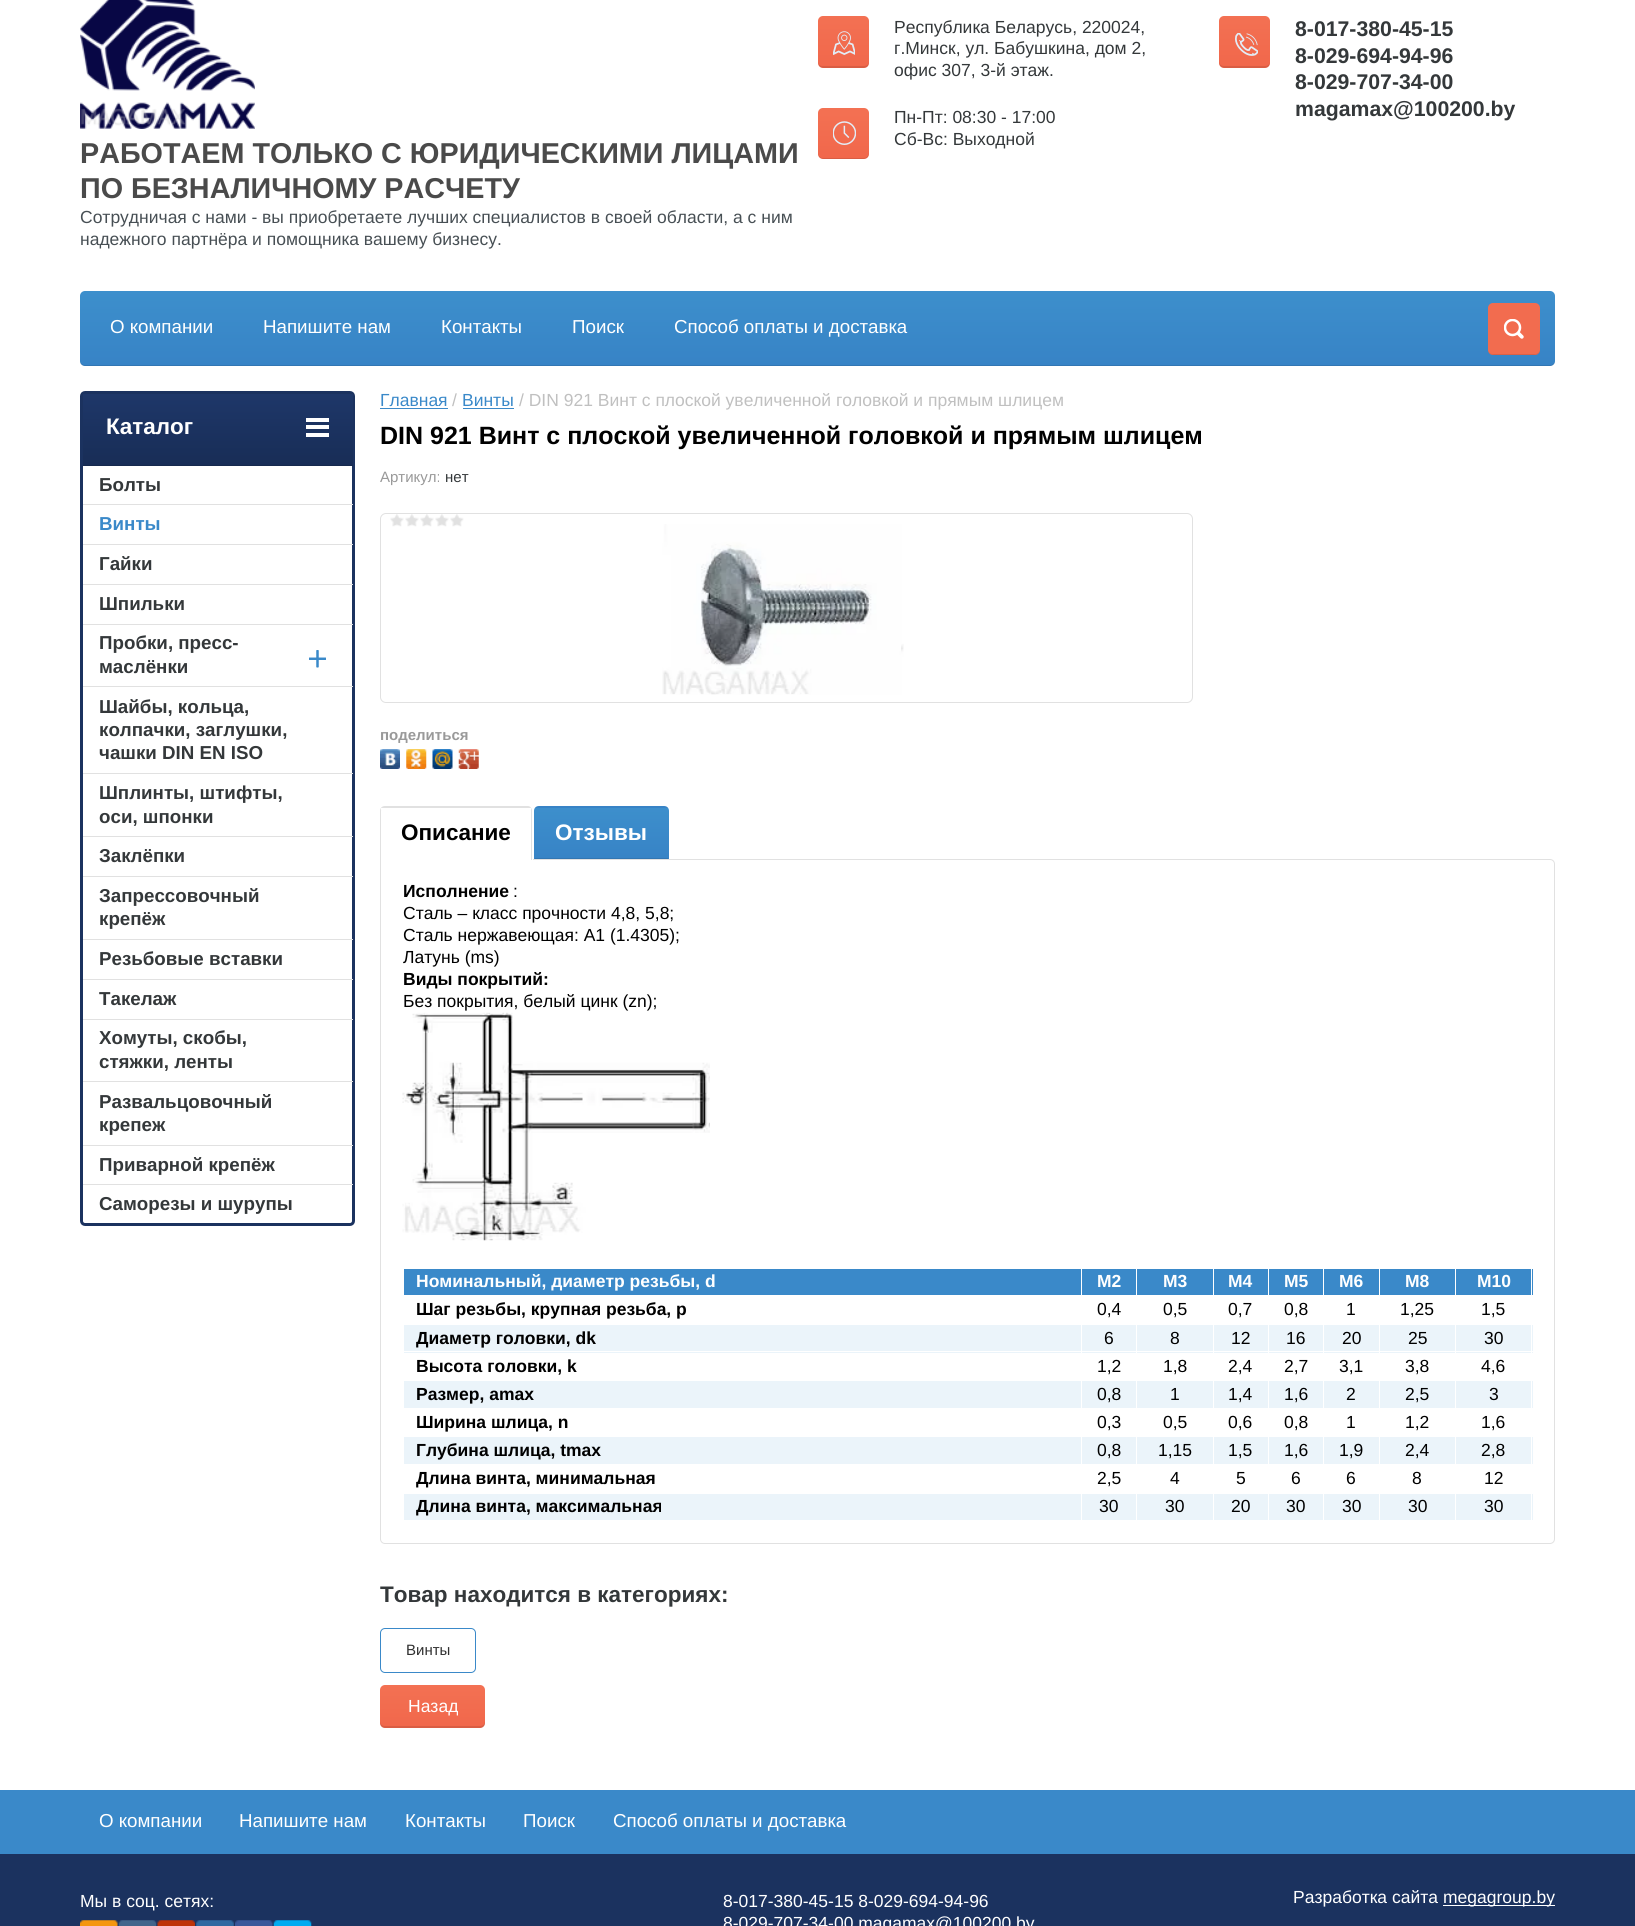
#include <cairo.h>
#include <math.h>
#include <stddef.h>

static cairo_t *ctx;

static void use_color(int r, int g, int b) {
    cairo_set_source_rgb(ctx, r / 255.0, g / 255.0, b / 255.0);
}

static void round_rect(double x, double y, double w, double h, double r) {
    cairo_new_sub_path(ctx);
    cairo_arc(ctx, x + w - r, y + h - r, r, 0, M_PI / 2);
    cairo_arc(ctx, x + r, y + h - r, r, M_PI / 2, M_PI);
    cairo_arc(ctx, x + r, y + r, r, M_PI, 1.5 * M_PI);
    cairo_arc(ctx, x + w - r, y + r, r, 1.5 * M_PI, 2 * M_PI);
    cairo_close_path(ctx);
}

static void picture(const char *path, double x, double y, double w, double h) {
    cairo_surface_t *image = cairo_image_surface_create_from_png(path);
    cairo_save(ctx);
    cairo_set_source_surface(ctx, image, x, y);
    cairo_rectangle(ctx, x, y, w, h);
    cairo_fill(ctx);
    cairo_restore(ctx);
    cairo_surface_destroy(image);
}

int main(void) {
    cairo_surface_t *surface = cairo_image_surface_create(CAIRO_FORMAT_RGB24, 1635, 1926);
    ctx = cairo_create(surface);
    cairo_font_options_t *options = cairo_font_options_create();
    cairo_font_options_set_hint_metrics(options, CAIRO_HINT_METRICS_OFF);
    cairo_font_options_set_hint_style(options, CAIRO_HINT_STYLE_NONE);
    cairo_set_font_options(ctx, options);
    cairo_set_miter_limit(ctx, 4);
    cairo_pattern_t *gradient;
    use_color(255, 255, 255);
    cairo_paint(ctx);
    gradient = cairo_pattern_create_linear(843, 68, 843, 16);
    cairo_pattern_add_color_stop_rgba(gradient, 0, 0.945, 0.404, 0.294, 1);
    cairo_pattern_add_color_stop_rgba(gradient, 1, 0.953, 0.443, 0.325, 1);
    cairo_set_source(ctx, gradient);
    cairo_pattern_destroy(gradient);
    round_rect(818, 16, 51, 52, 5);
    cairo_fill(ctx);
    cairo_set_source_rgba(ctx, 0, 0, 0, 0.1);
    cairo_new_path(ctx);
    cairo_move_to(ctx, 818, 61);
    cairo_curve_to(ctx, 818, 69, 823, 68, 830, 68);
    cairo_line_to(ctx, 857, 68);
    cairo_curve_to(ctx, 864, 68, 869, 69, 869, 61);
    cairo_curve_to(ctx, 869, 64, 867, 66, 864, 66);
    cairo_line_to(ctx, 822, 66);
    cairo_curve_to(ctx, 820, 66, 818, 64, 818, 61);
    cairo_close_path(ctx);
    cairo_fill(ctx);
    picture("img1.png", 833, 31, 22, 24);
    cairo_select_font_face(ctx, "Liberation Sans", CAIRO_FONT_SLANT_NORMAL, CAIRO_FONT_WEIGHT_NORMAL);
    cairo_set_font_size(ctx, 17.5);
    use_color(52, 56, 58);
    cairo_move_to(ctx, 894, 33);
    cairo_show_text(ctx, "Республика Беларусь, 220024,");
    cairo_move_to(ctx, 894, 54);
    cairo_show_text(ctx, "г.Минск, ул. Бабушкина, дом 2,");
    cairo_move_to(ctx, 894, 76);
    cairo_show_text(ctx, "офис 307, 3-й этаж.");
    gradient = cairo_pattern_create_linear(843, 159, 843, 108);
    cairo_pattern_add_color_stop_rgba(gradient, 0, 0.945, 0.404, 0.294, 1);
    cairo_pattern_add_color_stop_rgba(gradient, 1, 0.953, 0.443, 0.325, 1);
    cairo_set_source(ctx, gradient);
    cairo_pattern_destroy(gradient);
    round_rect(818, 108, 51, 51, 5);
    cairo_fill(ctx);
    cairo_set_source_rgba(ctx, 0, 0, 0, 0.1);
    cairo_new_path(ctx);
    cairo_move_to(ctx, 818, 152);
    cairo_curve_to(ctx, 818, 160, 823, 159, 830, 159);
    cairo_line_to(ctx, 857, 159);
    cairo_curve_to(ctx, 864, 159, 869, 160, 869, 152);
    cairo_curve_to(ctx, 869, 155, 867, 158, 864, 158);
    cairo_line_to(ctx, 822, 158);
    cairo_curve_to(ctx, 820, 158, 818, 155, 818, 152);
    cairo_close_path(ctx);
    cairo_fill(ctx);
    picture("img2.png", 833, 121, 23, 24);
    use_color(52, 56, 58);
    cairo_move_to(ctx, 894, 123);
    cairo_show_text(ctx, "Пн-Пт: 08:30 - 17:00");
    cairo_move_to(ctx, 894, 145);
    cairo_show_text(ctx, "Сб-Вс: Выходной");
    gradient = cairo_pattern_create_linear(1244, 68, 1244, 16);
    cairo_pattern_add_color_stop_rgba(gradient, 0, 0.945, 0.404, 0.294, 1);
    cairo_pattern_add_color_stop_rgba(gradient, 1, 0.953, 0.443, 0.325, 1);
    cairo_set_source(ctx, gradient);
    cairo_pattern_destroy(gradient);
    round_rect(1219, 16, 51, 52, 5);
    cairo_fill(ctx);
    cairo_set_source_rgba(ctx, 0, 0, 0, 0.1);
    cairo_new_path(ctx);
    cairo_move_to(ctx, 1219, 61);
    cairo_curve_to(ctx, 1219, 69, 1224, 68, 1231, 68);
    cairo_line_to(ctx, 1258, 68);
    cairo_curve_to(ctx, 1265, 68, 1270, 69, 1270, 61);
    cairo_curve_to(ctx, 1270, 64, 1268, 66, 1265, 66);
    cairo_line_to(ctx, 1224, 66);
    cairo_curve_to(ctx, 1221, 66, 1219, 64, 1219, 61);
    cairo_close_path(ctx);
    cairo_fill(ctx);
    picture("img3.png", 1235, 33, 23, 23);
    cairo_select_font_face(ctx, "Liberation Sans", CAIRO_FONT_SLANT_NORMAL, CAIRO_FONT_WEIGHT_BOLD);
    cairo_set_font_size(ctx, 21.25);
    use_color(52, 56, 58);
    cairo_move_to(ctx, 1295, 36);
    cairo_show_text(ctx, "8-017-380-45-15");
    cairo_move_to(ctx, 1295, 63);
    cairo_show_text(ctx, "8-029-694-94-96");
    cairo_move_to(ctx, 1295, 89);
    cairo_show_text(ctx, "8-029-707-34-00");
    cairo_move_to(ctx, 1295, 116);
    cairo_show_text(ctx, "magamax@100200.by");
    picture("img4.png", 80, 0, 175, 129);
    cairo_set_font_size(ctx, 28.75);
    use_color(74, 74, 74);
    cairo_move_to(ctx, 80, 163);
    cairo_show_text(ctx, "РАБОТАЕМ ТОЛЬКО С ЮРИДИЧЕСКИМИ ЛИЦАМИ");
    cairo_move_to(ctx, 80, 198);
    cairo_show_text(ctx, "ПО БЕЗНАЛИЧНОМУ РАСЧЕТУ");
    cairo_select_font_face(ctx, "Liberation Sans", CAIRO_FONT_SLANT_NORMAL, CAIRO_FONT_WEIGHT_NORMAL);
    cairo_set_font_size(ctx, 17.5);
    use_color(71, 79, 84);
    cairo_move_to(ctx, 80, 223);
    cairo_show_text(ctx, "Сотрудничая с нами - вы приобретаете лучших специалистов в своей области, а с ним");
    cairo_move_to(ctx, 80, 245);
    cairo_show_text(ctx, "надежного партнёра и помощника вашему бизнесу.");
    gradient = cairo_pattern_create_linear(818, 366, 818, 291);
    cairo_pattern_add_color_stop_rgba(gradient, 0, 0.216, 0.514, 0.776, 1);
    cairo_pattern_add_color_stop_rgba(gradient, 1, 0.239, 0.561, 0.8, 1);
    cairo_set_source(ctx, gradient);
    cairo_pattern_destroy(gradient);
    round_rect(80, 291, 1475, 75, 5);
    cairo_fill(ctx);
    cairo_set_source_rgba(ctx, 0, 0, 0, 0.1);
    cairo_new_path(ctx);
    cairo_move_to(ctx, 80, 360);
    cairo_line_to(ctx, 80, 361);
    cairo_curve_to(ctx, 80, 364, 82, 366, 85, 366);
    cairo_line_to(ctx, 1550, 366);
    cairo_curve_to(ctx, 1553, 366, 1555, 364, 1555, 361);
    cairo_line_to(ctx, 1555, 360);
    cairo_curve_to(ctx, 1555, 363, 1553, 365, 1550, 365);
    cairo_line_to(ctx, 85, 365);
    cairo_curve_to(ctx, 82, 365, 80, 363, 80, 360);
    cairo_close_path(ctx);
    cairo_fill(ctx);
    cairo_set_font_size(ctx, 18.75);
    use_color(255, 255, 255);
    cairo_move_to(ctx, 110, 333);
    cairo_show_text(ctx, "О компании");
    cairo_move_to(ctx, 263, 333);
    cairo_show_text(ctx, "Напишите нам");
    cairo_move_to(ctx, 441, 333);
    cairo_show_text(ctx, "Контакты");
    cairo_move_to(ctx, 572, 333);
    cairo_show_text(ctx, "Поиск");
    cairo_move_to(ctx, 674, 333);
    cairo_show_text(ctx, "Способ оплаты и доставка");
    use_color(242, 108, 79);
    round_rect(1488, 303, 52, 52, 5);
    cairo_fill(ctx);
    cairo_set_source_rgba(ctx, 0, 0, 0, 0.1);
    cairo_new_path(ctx);
    cairo_move_to(ctx, 1488, 349);
    cairo_curve_to(ctx, 1488, 356, 1494, 355, 1500, 355);
    cairo_line_to(ctx, 1528, 355);
    cairo_curve_to(ctx, 1534, 355, 1540, 356, 1540, 349);
    cairo_curve_to(ctx, 1540, 352, 1538, 354, 1535, 354);
    cairo_line_to(ctx, 1492, 354);
    cairo_curve_to(ctx, 1490, 354, 1488, 352, 1488, 349);
    cairo_close_path(ctx);
    cairo_fill(ctx);
    picture("img5.png", 1504, 319, 20, 20);
    round_rect(81.5, 392.5, 272, 832, 3.5);
    use_color(27, 50, 95);
    cairo_set_line_width(ctx, 3);
    cairo_stroke(ctx);
    gradient = cairo_pattern_create_linear(218, 466, 218, 394);
    cairo_pattern_add_color_stop_rgba(gradient, 0, 0.094, 0.176, 0.337, 1);
    cairo_pattern_add_color_stop_rgba(gradient, 1, 0.118, 0.216, 0.412, 1);
    cairo_set_source(ctx, gradient);
    cairo_pattern_destroy(gradient);
    cairo_rectangle(ctx, 83, 394, 270, 71);
    cairo_fill(ctx);
    use_color(22, 41, 77);
    cairo_rectangle(ctx, 83, 465, 270, 1);
    cairo_fill(ctx);
    cairo_select_font_face(ctx, "Liberation Sans", CAIRO_FONT_SLANT_NORMAL, CAIRO_FONT_WEIGHT_BOLD);
    cairo_set_font_size(ctx, 22.5);
    use_color(255, 255, 255);
    cairo_move_to(ctx, 106, 434);
    cairo_show_text(ctx, "Каталог");
    cairo_rectangle(ctx, 306, 418, 23, 4);
    cairo_fill(ctx);
    cairo_rectangle(ctx, 306, 425, 23, 4);
    cairo_fill(ctx);
    cairo_rectangle(ctx, 306, 433, 23, 4);
    cairo_fill(ctx);
    cairo_set_font_size(ctx, 18.75);
    use_color(52, 56, 58);
    cairo_move_to(ctx, 99, 491);
    cairo_show_text(ctx, "Болты");
    use_color(225, 225, 225);
    cairo_rectangle(ctx, 83, 504, 270, 1);
    cairo_fill(ctx);
    use_color(58, 137, 201);
    cairo_move_to(ctx, 99, 530);
    cairo_show_text(ctx, "Винты");
    use_color(225, 225, 225);
    cairo_rectangle(ctx, 83, 544, 270, 1);
    cairo_fill(ctx);
    use_color(52, 56, 58);
    cairo_move_to(ctx, 99, 570);
    cairo_show_text(ctx, "Гайки");
    use_color(225, 225, 225);
    cairo_rectangle(ctx, 83, 584, 270, 1);
    cairo_fill(ctx);
    use_color(52, 56, 58);
    cairo_move_to(ctx, 99, 610);
    cairo_show_text(ctx, "Шпильки");
    use_color(225, 225, 225);
    cairo_rectangle(ctx, 83, 624, 270, 1);
    cairo_fill(ctx);
    use_color(52, 56, 58);
    cairo_move_to(ctx, 99, 649);
    cairo_show_text(ctx, "Пробки, пресс-");
    cairo_move_to(ctx, 99, 673);
    cairo_show_text(ctx, "маслёнки");
    picture("img6.png", 309, 650, 17, 18);
    use_color(225, 225, 225);
    cairo_rectangle(ctx, 83, 686, 270, 1);
    cairo_fill(ctx);
    use_color(52, 56, 58);
    cairo_move_to(ctx, 99, 713);
    cairo_show_text(ctx, "Шайбы, кольца,");
    cairo_move_to(ctx, 99, 736);
    cairo_show_text(ctx, "колпачки, заглушки,");
    cairo_move_to(ctx, 99, 759);
    cairo_show_text(ctx, "чашки DIN EN ISO");
    use_color(225, 225, 225);
    cairo_rectangle(ctx, 83, 773, 270, 1);
    cairo_fill(ctx);
    use_color(52, 56, 58);
    cairo_move_to(ctx, 99, 799);
    cairo_show_text(ctx, "Шплинты, штифты,");
    cairo_move_to(ctx, 99, 823);
    cairo_show_text(ctx, "оси, шпонки");
    use_color(225, 225, 225);
    cairo_rectangle(ctx, 83, 836, 270, 1);
    cairo_fill(ctx);
    use_color(52, 56, 58);
    cairo_move_to(ctx, 99, 862);
    cairo_show_text(ctx, "Заклёпки");
    use_color(225, 225, 225);
    cairo_rectangle(ctx, 83, 876, 270, 1);
    cairo_fill(ctx);
    use_color(52, 56, 58);
    cairo_move_to(ctx, 99, 902);
    cairo_show_text(ctx, "Запрессовочный");
    cairo_move_to(ctx, 99, 925);
    cairo_show_text(ctx, "крепёж");
    use_color(225, 225, 225);
    cairo_rectangle(ctx, 83, 939, 270, 1);
    cairo_fill(ctx);
    use_color(52, 56, 58);
    cairo_move_to(ctx, 99, 965);
    cairo_show_text(ctx, "Резьбовые вставки");
    use_color(225, 225, 225);
    cairo_rectangle(ctx, 83, 979, 270, 1);
    cairo_fill(ctx);
    use_color(52, 56, 58);
    cairo_move_to(ctx, 99, 1005);
    cairo_show_text(ctx, "Такелаж");
    use_color(225, 225, 225);
    cairo_rectangle(ctx, 83, 1019, 270, 1);
    cairo_fill(ctx);
    use_color(52, 56, 58);
    cairo_move_to(ctx, 99, 1044);
    cairo_show_text(ctx, "Хомуты, скобы,");
    cairo_move_to(ctx, 99, 1068);
    cairo_show_text(ctx, "стяжки, ленты");
    use_color(225, 225, 225);
    cairo_rectangle(ctx, 83, 1081, 270, 1);
    cairo_fill(ctx);
    use_color(52, 56, 58);
    cairo_move_to(ctx, 99, 1108);
    cairo_show_text(ctx, "Развальцовочный");
    cairo_move_to(ctx, 99, 1131);
    cairo_show_text(ctx, "крепеж");
    use_color(225, 225, 225);
    cairo_rectangle(ctx, 83, 1145, 270, 1);
    cairo_fill(ctx);
    use_color(52, 56, 58);
    cairo_move_to(ctx, 99, 1171);
    cairo_show_text(ctx, "Приварной крепёж");
    use_color(225, 225, 225);
    cairo_rectangle(ctx, 83, 1184, 270, 1);
    cairo_fill(ctx);
    use_color(52, 56, 58);
    cairo_move_to(ctx, 99, 1210);
    cairo_show_text(ctx, "Саморезы и шурупы");
    cairo_select_font_face(ctx, "Liberation Sans", CAIRO_FONT_SLANT_NORMAL, CAIRO_FONT_WEIGHT_NORMAL);
    cairo_set_font_size(ctx, 17.5);
    use_color(58, 137, 201);
    cairo_move_to(ctx, 380, 406);
    cairo_show_text(ctx, "Главная");
    cairo_rectangle(ctx, 380, 408, 68, 1);
    cairo_fill(ctx);
    use_color(192, 192, 192);
    cairo_move_to(ctx, 452, 406);
    cairo_show_text(ctx, "/");
    use_color(58, 137, 201);
    cairo_move_to(ctx, 462, 406);
    cairo_show_text(ctx, "Винты");
    cairo_rectangle(ctx, 463, 408, 51, 1);
    cairo_fill(ctx);
    use_color(192, 192, 192);
    cairo_move_to(ctx, 519, 406);
    cairo_show_text(ctx, "/ DIN 921 Винт с плоской увеличенной головкой и прямым шлицем");
    cairo_select_font_face(ctx, "Liberation Sans", CAIRO_FONT_SLANT_NORMAL, CAIRO_FONT_WEIGHT_BOLD);
    cairo_set_font_size(ctx, 25);
    use_color(0, 0, 0);
    cairo_move_to(ctx, 380, 444);
    cairo_show_text(ctx, "DIN 921 Винт с плоской увеличенной головкой и прямым шлицем");
    cairo_select_font_face(ctx, "Liberation Sans", CAIRO_FONT_SLANT_NORMAL, CAIRO_FONT_WEIGHT_NORMAL);
    cairo_set_font_size(ctx, 15);
    use_color(153, 153, 153);
    cairo_move_to(ctx, 380, 482);
    cairo_show_text(ctx, "Артикул:");
    use_color(52, 56, 58);
    cairo_move_to(ctx, 445, 482);
    cairo_show_text(ctx, "нет");
    round_rect(380.5, 513.5, 812, 189, 5.5);
    use_color(225, 225, 225);
    cairo_set_line_width(ctx, 1);
    cairo_stroke(ctx);
    picture("img7.png", 390, 514, 74, 13);
    picture("img8.png", 662, 524, 242, 171);
    cairo_select_font_face(ctx, "Liberation Sans", CAIRO_FONT_SLANT_NORMAL, CAIRO_FONT_WEIGHT_BOLD);
    use_color(153, 153, 153);
    cairo_move_to(ctx, 380, 740);
    cairo_show_text(ctx, "поделиться");
    picture("img9.png", 380, 749, 20, 20);
    picture("img10.png", 406, 749, 21, 20);
    picture("img11.png", 432, 749, 21, 20);
    picture("img12.png", 458, 749, 21, 20);
    cairo_new_path(ctx);
    cairo_move_to(ctx, 380.5, 859.5);
    cairo_line_to(ctx, 1550, 859.5);
    cairo_curve_to(ctx, 1552.5, 859.5, 1554.5, 861.5, 1554.5, 864);
    cairo_line_to(ctx, 1554.5, 1539);
    cairo_curve_to(ctx, 1554.5, 1541.5, 1552.5, 1543.5, 1550, 1543.5);
    cairo_line_to(ctx, 385, 1543.5);
    cairo_curve_to(ctx, 382.5, 1543.5, 380.5, 1541.5, 380.5, 1539);
    cairo_close_path(ctx);
    use_color(225, 225, 225);
    cairo_stroke(ctx);
    use_color(255, 255, 255);
    cairo_new_path(ctx);
    cairo_move_to(ctx, 385, 806);
    cairo_line_to(ctx, 528, 806);
    cairo_curve_to(ctx, 531, 806, 533, 808, 533, 811);
    cairo_line_to(ctx, 533, 860);
    cairo_line_to(ctx, 380, 860);
    cairo_line_to(ctx, 380, 811);
    cairo_curve_to(ctx, 380, 808, 382, 806, 385, 806);
    cairo_close_path(ctx);
    cairo_fill(ctx);
    use_color(225, 225, 225);
    cairo_set_fill_rule(ctx, CAIRO_FILL_RULE_EVEN_ODD);
    cairo_new_path(ctx);
    cairo_move_to(ctx, 385, 806);
    cairo_line_to(ctx, 528, 806);
    cairo_curve_to(ctx, 530, 806, 532, 808, 532, 811);
    cairo_line_to(ctx, 532, 860);
    cairo_line_to(ctx, 380, 860);
    cairo_line_to(ctx, 380, 811);
    cairo_curve_to(ctx, 380, 808, 382, 806, 385, 806);
    cairo_close_path(ctx);
    cairo_move_to(ctx, 385, 808);
    cairo_line_to(ctx, 528, 808);
    cairo_curve_to(ctx, 530, 808, 531, 809, 531, 811);
    cairo_line_to(ctx, 531, 860);
    cairo_line_to(ctx, 381, 860);
    cairo_line_to(ctx, 381, 811);
    cairo_curve_to(ctx, 381, 809, 383, 808, 385, 808);
    cairo_close_path(ctx);
    cairo_fill(ctx);
    use_color(255, 255, 255);
    cairo_rectangle(ctx, 381, 808, 150, 2);
    cairo_fill(ctx);
    cairo_set_font_size(ctx, 22.5);
    use_color(0, 0, 0);
    cairo_move_to(ctx, 401, 840);
    cairo_show_text(ctx, "Описание");
    cairo_save(ctx);
    cairo_set_fill_rule(ctx, CAIRO_FILL_RULE_WINDING);
    cairo_new_path(ctx);
    cairo_move_to(ctx, 539, 806);
    cairo_line_to(ctx, 664, 806);
    cairo_curve_to(ctx, 667, 806, 669, 808, 669, 811);
    cairo_line_to(ctx, 669, 859);
    cairo_line_to(ctx, 534, 859);
    cairo_line_to(ctx, 534, 811);
    cairo_curve_to(ctx, 534, 808, 536, 806, 539, 806);
    cairo_close_path(ctx);
    cairo_clip(ctx);
    gradient = cairo_pattern_create_linear(601, 808, 601, 756);
    cairo_pattern_add_color_stop_rgba(gradient, 0, 0.216, 0.514, 0.776, 1);
    cairo_pattern_add_color_stop_rgba(gradient, 1, 0.239, 0.561, 0.8, 1);
    cairo_set_source(ctx, gradient);
    cairo_pattern_destroy(gradient);
    cairo_rectangle(ctx, 534, 806, 135, 2);
    cairo_fill(ctx);
    gradient = cairo_pattern_create_linear(601, 859, 601, 808);
    cairo_pattern_add_color_stop_rgba(gradient, 0, 0.216, 0.514, 0.776, 1);
    cairo_pattern_add_color_stop_rgba(gradient, 1, 0.239, 0.561, 0.8, 1);
    cairo_set_source(ctx, gradient);
    cairo_pattern_destroy(gradient);
    cairo_rectangle(ctx, 534, 808, 135, 51);
    cairo_fill(ctx);
    cairo_restore(ctx);
    use_color(50, 118, 178);
    cairo_rectangle(ctx, 535, 858, 133, 1);
    cairo_fill(ctx);
    use_color(255, 255, 255);
    cairo_move_to(ctx, 555, 840);
    cairo_show_text(ctx, "Отзывы");
    cairo_set_font_size(ctx, 17.5);
    use_color(0, 0, 0);
    cairo_move_to(ctx, 403, 897);
    cairo_show_text(ctx, "Исполнение");
    cairo_select_font_face(ctx, "Liberation Sans", CAIRO_FONT_SLANT_NORMAL, CAIRO_FONT_WEIGHT_NORMAL);
    cairo_move_to(ctx, 513, 897);
    cairo_show_text(ctx, ":");
    cairo_move_to(ctx, 403, 919);
    cairo_show_text(ctx, "Сталь – класс прочности 4,8, 5,8;");
    cairo_move_to(ctx, 403, 941);
    cairo_show_text(ctx, "Сталь нержавеющая: A1 (1.4305);");
    cairo_move_to(ctx, 403, 963);
    cairo_show_text(ctx, "Латунь (ms)");
    cairo_select_font_face(ctx, "Liberation Sans", CAIRO_FONT_SLANT_NORMAL, CAIRO_FONT_WEIGHT_BOLD);
    cairo_move_to(ctx, 403, 985);
    cairo_show_text(ctx, "Виды покрытий:");
    cairo_select_font_face(ctx, "Liberation Sans", CAIRO_FONT_SLANT_NORMAL, CAIRO_FONT_WEIGHT_NORMAL);
    cairo_move_to(ctx, 403, 1007);
    cairo_show_text(ctx, "Без покрытия, белый цинк (zn);");
    picture("img13.png", 402, 1012, 308, 229);
    use_color(58, 137, 201);
    cairo_rectangle(ctx, 404, 1269, 1129, 26);
    cairo_fill(ctx);
    cairo_select_font_face(ctx, "Liberation Sans", CAIRO_FONT_SLANT_NORMAL, CAIRO_FONT_WEIGHT_BOLD);
    use_color(255, 255, 255);
    cairo_move_to(ctx, 416, 1287);
    cairo_show_text(ctx, "Номинальный, диаметр резьбы, d");
    cairo_rectangle(ctx, 1081, 1268, 1, 28);
    cairo_fill(ctx);
    cairo_move_to(ctx, 1097, 1287);
    cairo_show_text(ctx, "М2");
    cairo_rectangle(ctx, 1136, 1268, 1, 28);
    cairo_fill(ctx);
    cairo_move_to(ctx, 1163, 1287);
    cairo_show_text(ctx, "М3");
    cairo_rectangle(ctx, 1213, 1268, 1, 28);
    cairo_fill(ctx);
    cairo_move_to(ctx, 1228, 1287);
    cairo_show_text(ctx, "М4");
    cairo_rectangle(ctx, 1268, 1268, 1, 28);
    cairo_fill(ctx);
    cairo_move_to(ctx, 1284, 1287);
    cairo_show_text(ctx, "М5");
    cairo_rectangle(ctx, 1323, 1268, 1, 28);
    cairo_fill(ctx);
    cairo_move_to(ctx, 1339, 1287);
    cairo_show_text(ctx, "М6");
    cairo_rectangle(ctx, 1379, 1268, 1, 28);
    cairo_fill(ctx);
    cairo_move_to(ctx, 1405, 1287);
    cairo_show_text(ctx, "М8");
    cairo_rectangle(ctx, 1531, 1268, 1, 28);
    cairo_fill(ctx);
    cairo_rectangle(ctx, 1455, 1268, 1, 28);
    cairo_fill(ctx);
    cairo_move_to(ctx, 1477, 1287);
    cairo_show_text(ctx, "М10");
    use_color(0, 0, 0);
    cairo_move_to(ctx, 416, 1315);
    cairo_show_text(ctx, "Шаг резьбы, крупная резьба, p");
    cairo_select_font_face(ctx, "Liberation Sans", CAIRO_FONT_SLANT_NORMAL, CAIRO_FONT_WEIGHT_NORMAL);
    cairo_move_to(ctx, 1097, 1315);
    cairo_show_text(ctx, "0,4");
    cairo_move_to(ctx, 1163, 1315);
    cairo_show_text(ctx, "0,5");
    cairo_move_to(ctx, 1228, 1315);
    cairo_show_text(ctx, "0,7");
    cairo_move_to(ctx, 1284, 1315);
    cairo_show_text(ctx, "0,8");
    cairo_move_to(ctx, 1346, 1315);
    cairo_show_text(ctx, "1");
    cairo_move_to(ctx, 1400, 1315);
    cairo_show_text(ctx, "1,25");
    cairo_move_to(ctx, 1481, 1315);
    cairo_show_text(ctx, "1,5");
    use_color(235, 244, 250);
    cairo_rectangle(ctx, 404, 1325, 1129, 28);
    cairo_fill(ctx);
    cairo_select_font_face(ctx, "Liberation Sans", CAIRO_FONT_SLANT_NORMAL, CAIRO_FONT_WEIGHT_BOLD);
    use_color(0, 0, 0);
    cairo_move_to(ctx, 416, 1344);
    cairo_show_text(ctx, "Диаметр головки, dk");
    use_color(255, 255, 255);
    cairo_rectangle(ctx, 1455, 1351, 78, 1);
    cairo_fill(ctx);
    cairo_rectangle(ctx, 1455, 1351, 1, 2);
    cairo_fill(ctx);
    cairo_rectangle(ctx, 1379, 1351, 77, 1);
    cairo_fill(ctx);
    cairo_rectangle(ctx, 1379, 1351, 1, 2);
    cairo_fill(ctx);
    cairo_rectangle(ctx, 1323, 1351, 57, 1);
    cairo_fill(ctx);
    cairo_rectangle(ctx, 1323, 1351, 1, 2);
    cairo_fill(ctx);
    cairo_rectangle(ctx, 1268, 1351, 56, 1);
    cairo_fill(ctx);
    cairo_rectangle(ctx, 1268, 1351, 1, 2);
    cairo_fill(ctx);
    cairo_rectangle(ctx, 1213, 1351, 56, 1);
    cairo_fill(ctx);
    cairo_rectangle(ctx, 1213, 1351, 1, 2);
    cairo_fill(ctx);
    cairo_rectangle(ctx, 1136, 1351, 78, 1);
    cairo_fill(ctx);
    cairo_rectangle(ctx, 1136, 1351, 1, 2);
    cairo_fill(ctx);
    cairo_rectangle(ctx, 1081, 1351, 57, 1);
    cairo_fill(ctx);
    cairo_rectangle(ctx, 1081, 1351, 1, 2);
    cairo_fill(ctx);
    cairo_rectangle(ctx, 403, 1351, 680, 1);
    cairo_fill(ctx);
    cairo_rectangle(ctx, 1081, 1324, 1, 29);
    cairo_fill(ctx);
    cairo_select_font_face(ctx, "Liberation Sans", CAIRO_FONT_SLANT_NORMAL, CAIRO_FONT_WEIGHT_NORMAL);
    use_color(0, 0, 0);
    cairo_move_to(ctx, 1104, 1344);
    cairo_show_text(ctx, "6");
    use_color(255, 255, 255);
    cairo_rectangle(ctx, 1136, 1324, 1, 29);
    cairo_fill(ctx);
    use_color(0, 0, 0);
    cairo_move_to(ctx, 1170, 1344);
    cairo_show_text(ctx, "8");
    use_color(255, 255, 255);
    cairo_rectangle(ctx, 1213, 1324, 1, 29);
    cairo_fill(ctx);
    use_color(0, 0, 0);
    cairo_move_to(ctx, 1231, 1344);
    cairo_show_text(ctx, "12");
    use_color(255, 255, 255);
    cairo_rectangle(ctx, 1268, 1324, 1, 29);
    cairo_fill(ctx);
    use_color(0, 0, 0);
    cairo_move_to(ctx, 1286, 1344);
    cairo_show_text(ctx, "16");
    use_color(255, 255, 255);
    cairo_rectangle(ctx, 1323, 1324, 1, 29);
    cairo_fill(ctx);
    use_color(0, 0, 0);
    cairo_move_to(ctx, 1342, 1344);
    cairo_show_text(ctx, "20");
    use_color(255, 255, 255);
    cairo_rectangle(ctx, 1379, 1324, 1, 29);
    cairo_fill(ctx);
    use_color(0, 0, 0);
    cairo_move_to(ctx, 1408, 1344);
    cairo_show_text(ctx, "25");
    use_color(255, 255, 255);
    cairo_rectangle(ctx, 1455, 1324, 1, 29);
    cairo_fill(ctx);
    use_color(0, 0, 0);
    cairo_move_to(ctx, 1484, 1344);
    cairo_show_text(ctx, "30");
    cairo_select_font_face(ctx, "Liberation Sans", CAIRO_FONT_SLANT_NORMAL, CAIRO_FONT_WEIGHT_BOLD);
    cairo_move_to(ctx, 416, 1372);
    cairo_show_text(ctx, "Высота головки, k");
    cairo_select_font_face(ctx, "Liberation Sans", CAIRO_FONT_SLANT_NORMAL, CAIRO_FONT_WEIGHT_NORMAL);
    cairo_move_to(ctx, 1097, 1372);
    cairo_show_text(ctx, "1,2");
    cairo_move_to(ctx, 1163, 1372);
    cairo_show_text(ctx, "1,8");
    cairo_move_to(ctx, 1228, 1372);
    cairo_show_text(ctx, "2,4");
    cairo_move_to(ctx, 1284, 1372);
    cairo_show_text(ctx, "2,7");
    cairo_move_to(ctx, 1339, 1372);
    cairo_show_text(ctx, "3,1");
    cairo_move_to(ctx, 1405, 1372);
    cairo_show_text(ctx, "3,8");
    use_color(255, 255, 255);
    cairo_rectangle(ctx, 1531, 1324, 1, 29);
    cairo_fill(ctx);
    use_color(0, 0, 0);
    cairo_move_to(ctx, 1481, 1372);
    cairo_show_text(ctx, "4,6");
    use_color(235, 244, 250);
    cairo_rectangle(ctx, 404, 1381, 1129, 27);
    cairo_fill(ctx);
    cairo_select_font_face(ctx, "Liberation Sans", CAIRO_FONT_SLANT_NORMAL, CAIRO_FONT_WEIGHT_BOLD);
    use_color(0, 0, 0);
    cairo_move_to(ctx, 416, 1400);
    cairo_show_text(ctx, "Размер, amax");
    use_color(255, 255, 255);
    cairo_rectangle(ctx, 1081, 1380, 1, 29);
    cairo_fill(ctx);
    cairo_select_font_face(ctx, "Liberation Sans", CAIRO_FONT_SLANT_NORMAL, CAIRO_FONT_WEIGHT_NORMAL);
    use_color(0, 0, 0);
    cairo_move_to(ctx, 1097, 1400);
    cairo_show_text(ctx, "0,8");
    use_color(255, 255, 255);
    cairo_rectangle(ctx, 1136, 1380, 1, 29);
    cairo_fill(ctx);
    use_color(0, 0, 0);
    cairo_move_to(ctx, 1170, 1400);
    cairo_show_text(ctx, "1");
    use_color(255, 255, 255);
    cairo_rectangle(ctx, 1213, 1380, 1, 29);
    cairo_fill(ctx);
    use_color(0, 0, 0);
    cairo_move_to(ctx, 1228, 1400);
    cairo_show_text(ctx, "1,4");
    use_color(255, 255, 255);
    cairo_rectangle(ctx, 1268, 1380, 1, 29);
    cairo_fill(ctx);
    use_color(0, 0, 0);
    cairo_move_to(ctx, 1284, 1400);
    cairo_show_text(ctx, "1,6");
    use_color(255, 255, 255);
    cairo_rectangle(ctx, 1323, 1380, 1, 29);
    cairo_fill(ctx);
    use_color(0, 0, 0);
    cairo_move_to(ctx, 1346, 1400);
    cairo_show_text(ctx, "2");
    use_color(255, 255, 255);
    cairo_rectangle(ctx, 1379, 1380, 1, 29);
    cairo_fill(ctx);
    use_color(0, 0, 0);
    cairo_move_to(ctx, 1405, 1400);
    cairo_show_text(ctx, "2,5");
    use_color(255, 255, 255);
    cairo_rectangle(ctx, 1531, 1380, 1, 29);
    cairo_fill(ctx);
    cairo_rectangle(ctx, 1455, 1380, 1, 29);
    cairo_fill(ctx);
    use_color(0, 0, 0);
    cairo_move_to(ctx, 1489, 1400);
    cairo_show_text(ctx, "3");
    cairo_select_font_face(ctx, "Liberation Sans", CAIRO_FONT_SLANT_NORMAL, CAIRO_FONT_WEIGHT_BOLD);
    cairo_move_to(ctx, 416, 1428);
    cairo_show_text(ctx, "Ширина шлица, n");
    cairo_select_font_face(ctx, "Liberation Sans", CAIRO_FONT_SLANT_NORMAL, CAIRO_FONT_WEIGHT_NORMAL);
    cairo_move_to(ctx, 1097, 1428);
    cairo_show_text(ctx, "0,3");
    cairo_move_to(ctx, 1163, 1428);
    cairo_show_text(ctx, "0,5");
    cairo_move_to(ctx, 1228, 1428);
    cairo_show_text(ctx, "0,6");
    cairo_move_to(ctx, 1284, 1428);
    cairo_show_text(ctx, "0,8");
    cairo_move_to(ctx, 1346, 1428);
    cairo_show_text(ctx, "1");
    cairo_move_to(ctx, 1405, 1428);
    cairo_show_text(ctx, "1,2");
    cairo_move_to(ctx, 1481, 1428);
    cairo_show_text(ctx, "1,6");
    use_color(235, 244, 250);
    cairo_rectangle(ctx, 404, 1437, 1129, 27);
    cairo_fill(ctx);
    cairo_select_font_face(ctx, "Liberation Sans", CAIRO_FONT_SLANT_NORMAL, CAIRO_FONT_WEIGHT_BOLD);
    use_color(0, 0, 0);
    cairo_move_to(ctx, 416, 1456);
    cairo_show_text(ctx, "Глубина шлица, tmax");
    use_color(255, 255, 255);
    cairo_rectangle(ctx, 1081, 1436, 1, 29);
    cairo_fill(ctx);
    cairo_select_font_face(ctx, "Liberation Sans", CAIRO_FONT_SLANT_NORMAL, CAIRO_FONT_WEIGHT_NORMAL);
    use_color(0, 0, 0);
    cairo_move_to(ctx, 1097, 1456);
    cairo_show_text(ctx, "0,8");
    use_color(255, 255, 255);
    cairo_rectangle(ctx, 1136, 1436, 1, 29);
    cairo_fill(ctx);
    use_color(0, 0, 0);
    cairo_move_to(ctx, 1158, 1456);
    cairo_show_text(ctx, "1,15");
    use_color(255, 255, 255);
    cairo_rectangle(ctx, 1213, 1436, 1, 29);
    cairo_fill(ctx);
    use_color(0, 0, 0);
    cairo_move_to(ctx, 1228, 1456);
    cairo_show_text(ctx, "1,5");
    use_color(255, 255, 255);
    cairo_rectangle(ctx, 1268, 1436, 1, 29);
    cairo_fill(ctx);
    use_color(0, 0, 0);
    cairo_move_to(ctx, 1284, 1456);
    cairo_show_text(ctx, "1,6");
    use_color(255, 255, 255);
    cairo_rectangle(ctx, 1323, 1436, 1, 29);
    cairo_fill(ctx);
    use_color(0, 0, 0);
    cairo_move_to(ctx, 1339, 1456);
    cairo_show_text(ctx, "1,9");
    use_color(255, 255, 255);
    cairo_rectangle(ctx, 1379, 1436, 1, 29);
    cairo_fill(ctx);
    use_color(0, 0, 0);
    cairo_move_to(ctx, 1405, 1456);
    cairo_show_text(ctx, "2,4");
    use_color(255, 255, 255);
    cairo_rectangle(ctx, 1531, 1436, 1, 29);
    cairo_fill(ctx);
    cairo_rectangle(ctx, 1455, 1436, 1, 29);
    cairo_fill(ctx);
    use_color(0, 0, 0);
    cairo_move_to(ctx, 1481, 1456);
    cairo_show_text(ctx, "2,8");
    cairo_select_font_face(ctx, "Liberation Sans", CAIRO_FONT_SLANT_NORMAL, CAIRO_FONT_WEIGHT_BOLD);
    cairo_move_to(ctx, 416, 1484);
    cairo_show_text(ctx, "Длина винта, минимальная");
    cairo_select_font_face(ctx, "Liberation Sans", CAIRO_FONT_SLANT_NORMAL, CAIRO_FONT_WEIGHT_NORMAL);
    cairo_move_to(ctx, 1097, 1484);
    cairo_show_text(ctx, "2,5");
    cairo_move_to(ctx, 1170, 1484);
    cairo_show_text(ctx, "4");
    cairo_move_to(ctx, 1236, 1484);
    cairo_show_text(ctx, "5");
    cairo_move_to(ctx, 1291, 1484);
    cairo_show_text(ctx, "6");
    cairo_move_to(ctx, 1346, 1484);
    cairo_show_text(ctx, "6");
    cairo_move_to(ctx, 1412, 1484);
    cairo_show_text(ctx, "8");
    cairo_move_to(ctx, 1484, 1484);
    cairo_show_text(ctx, "12");
    use_color(235, 244, 250);
    cairo_rectangle(ctx, 404, 1494, 1129, 26);
    cairo_fill(ctx);
    cairo_select_font_face(ctx, "Liberation Sans", CAIRO_FONT_SLANT_NORMAL, CAIRO_FONT_WEIGHT_BOLD);
    use_color(0, 0, 0);
    cairo_move_to(ctx, 416, 1512);
    cairo_show_text(ctx, "Длина винта, максимальная");
    use_color(255, 255, 255);
    cairo_rectangle(ctx, 1081, 1493, 1, 28);
    cairo_fill(ctx);
    cairo_select_font_face(ctx, "Liberation Sans", CAIRO_FONT_SLANT_NORMAL, CAIRO_FONT_WEIGHT_NORMAL);
    use_color(0, 0, 0);
    cairo_move_to(ctx, 1099, 1512);
    cairo_show_text(ctx, "30");
    use_color(255, 255, 255);
    cairo_rectangle(ctx, 1136, 1493, 1, 28);
    cairo_fill(ctx);
    use_color(0, 0, 0);
    cairo_move_to(ctx, 1165, 1512);
    cairo_show_text(ctx, "30");
    use_color(255, 255, 255);
    cairo_rectangle(ctx, 1213, 1493, 1, 28);
    cairo_fill(ctx);
    use_color(0, 0, 0);
    cairo_move_to(ctx, 1231, 1512);
    cairo_show_text(ctx, "20");
    use_color(255, 255, 255);
    cairo_rectangle(ctx, 1268, 1493, 1, 28);
    cairo_fill(ctx);
    use_color(0, 0, 0);
    cairo_move_to(ctx, 1286, 1512);
    cairo_show_text(ctx, "30");
    use_color(255, 255, 255);
    cairo_rectangle(ctx, 1323, 1493, 1, 28);
    cairo_fill(ctx);
    use_color(0, 0, 0);
    cairo_move_to(ctx, 1342, 1512);
    cairo_show_text(ctx, "30");
    use_color(255, 255, 255);
    cairo_rectangle(ctx, 1379, 1493, 1, 28);
    cairo_fill(ctx);
    use_color(0, 0, 0);
    cairo_move_to(ctx, 1408, 1512);
    cairo_show_text(ctx, "30");
    use_color(255, 255, 255);
    cairo_rectangle(ctx, 1531, 1493, 1, 28);
    cairo_fill(ctx);
    cairo_rectangle(ctx, 1455, 1493, 1, 28);
    cairo_fill(ctx);
    use_color(0, 0, 0);
    cairo_move_to(ctx, 1484, 1512);
    cairo_show_text(ctx, "30");
    cairo_select_font_face(ctx, "Liberation Sans", CAIRO_FONT_SLANT_NORMAL, CAIRO_FONT_WEIGHT_BOLD);
    cairo_set_font_size(ctx, 22.5);
    use_color(52, 56, 58);
    cairo_move_to(ctx, 380, 1602);
    cairo_show_text(ctx, "Товар находится в категориях:");
    round_rect(380.5, 1628.5, 95, 44, 4.5);
    use_color(58, 137, 201);
    cairo_stroke(ctx);
    cairo_select_font_face(ctx, "Liberation Sans", CAIRO_FONT_SLANT_NORMAL, CAIRO_FONT_WEIGHT_NORMAL);
    cairo_set_font_size(ctx, 15);
    use_color(48, 48, 48);
    cairo_move_to(ctx, 406, 1655);
    cairo_show_text(ctx, "Винты");
    gradient = cairo_pattern_create_linear(433, 1728, 433, 1685);
    cairo_pattern_add_color_stop_rgba(gradient, 0, 0.945, 0.404, 0.294, 1);
    cairo_pattern_add_color_stop_rgba(gradient, 1, 0.953, 0.443, 0.325, 1);
    cairo_set_source(ctx, gradient);
    cairo_pattern_destroy(gradient);
    round_rect(380, 1685, 105, 43, 5);
    cairo_fill(ctx);
    cairo_set_source_rgba(ctx, 0, 0, 0, 0.1);
    cairo_set_fill_rule(ctx, CAIRO_FILL_RULE_WINDING);
    cairo_new_path(ctx);
    cairo_move_to(ctx, 380, 1721);
    cairo_line_to(ctx, 380, 1723);
    cairo_curve_to(ctx, 380, 1726, 382, 1728, 385, 1728);
    cairo_line_to(ctx, 480, 1728);
    cairo_curve_to(ctx, 483, 1728, 485, 1726, 485, 1723);
    cairo_line_to(ctx, 485, 1721);
    cairo_curve_to(ctx, 485, 1724, 483, 1726, 480, 1726);
    cairo_line_to(ctx, 385, 1726);
    cairo_curve_to(ctx, 382, 1726, 380, 1724, 380, 1721);
    cairo_close_path(ctx);
    cairo_fill(ctx);
    cairo_set_font_size(ctx, 17.5);
    use_color(255, 255, 255);
    cairo_move_to(ctx, 408, 1712);
    cairo_show_text(ctx, "Назад");
    use_color(27, 50, 95);
    cairo_rectangle(ctx, 0, 1854, 1635, 72);
    cairo_fill(ctx);
    use_color(58, 137, 201);
    cairo_rectangle(ctx, 0, 1790, 1635, 64);
    cairo_fill(ctx);
    cairo_set_font_size(ctx, 18.75);
    use_color(255, 255, 255);
    cairo_move_to(ctx, 99, 1827);
    cairo_show_text(ctx, "О компании");
    cairo_move_to(ctx, 239, 1827);
    cairo_show_text(ctx, "Напишите нам");
    cairo_move_to(ctx, 405, 1827);
    cairo_show_text(ctx, "Контакты");
    cairo_move_to(ctx, 523, 1827);
    cairo_show_text(ctx, "Поиск");
    cairo_move_to(ctx, 613, 1827);
    cairo_show_text(ctx, "Способ оплаты и доставка");
    cairo_set_font_size(ctx, 17.5);
    cairo_move_to(ctx, 80, 1907);
    cairo_show_text(ctx, "Мы в соц. сетях:");
    picture("img14.png", 80, 1920, 38, 6);
    picture("img15.png", 118, 1920, 39, 6);
    picture("img16.png", 157, 1920, 38, 6);
    picture("img17.png", 196, 1920, 38, 6);
    picture("img18.png", 235, 1920, 38, 6);
    picture("img19.png", 273, 1920, 39, 6);
    cairo_move_to(ctx, 723, 1907);
    cairo_show_text(ctx, "8-017-380-45-15 8-029-694-94-96");
    cairo_move_to(ctx, 723, 1929);
    cairo_show_text(ctx, "8-029-707-34-00 magamax@100200.by");
    cairo_move_to(ctx, 1293, 1903);
    cairo_show_text(ctx, "Разработка сайта");
    cairo_rectangle(ctx, 1443, 1905, 112, 1);
    cairo_fill(ctx);
    cairo_move_to(ctx, 1443, 1903);
    cairo_show_text(ctx, "megagroup.by");
    cairo_surface_write_to_png(surface, "result.png");
    cairo_font_options_destroy(options);
    cairo_destroy(ctx);
    cairo_surface_destroy(surface);
    return 0;
}
